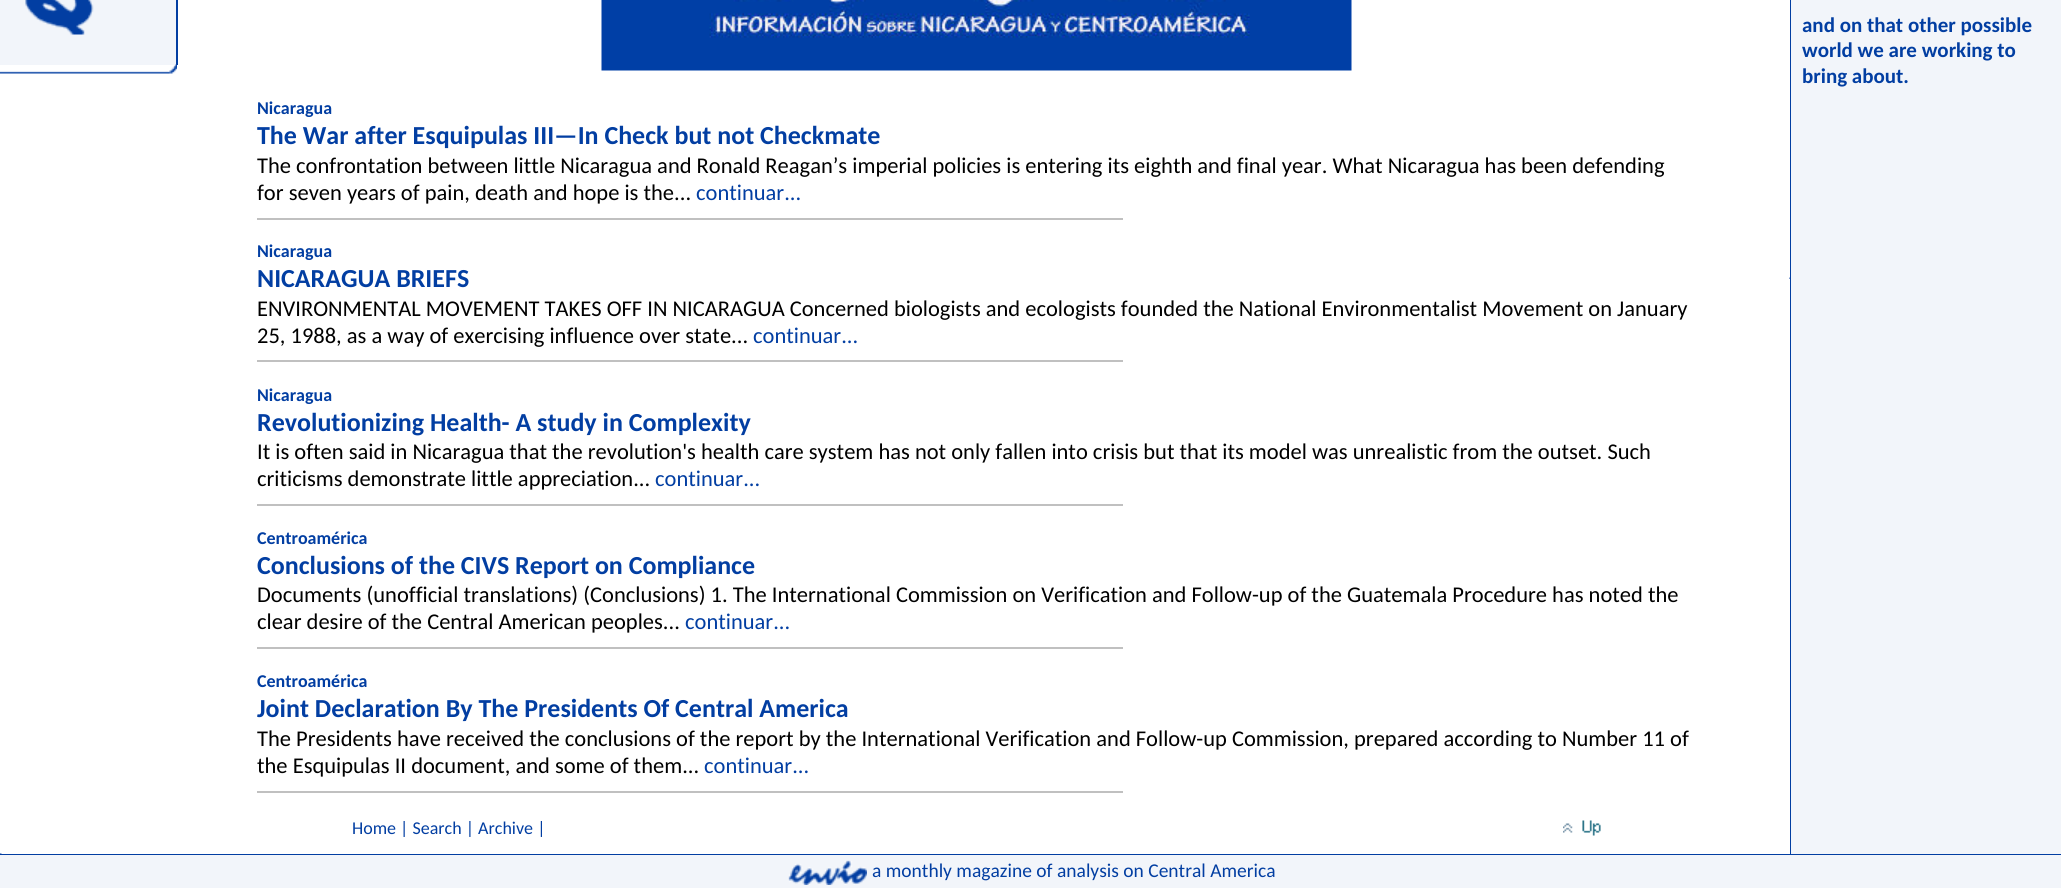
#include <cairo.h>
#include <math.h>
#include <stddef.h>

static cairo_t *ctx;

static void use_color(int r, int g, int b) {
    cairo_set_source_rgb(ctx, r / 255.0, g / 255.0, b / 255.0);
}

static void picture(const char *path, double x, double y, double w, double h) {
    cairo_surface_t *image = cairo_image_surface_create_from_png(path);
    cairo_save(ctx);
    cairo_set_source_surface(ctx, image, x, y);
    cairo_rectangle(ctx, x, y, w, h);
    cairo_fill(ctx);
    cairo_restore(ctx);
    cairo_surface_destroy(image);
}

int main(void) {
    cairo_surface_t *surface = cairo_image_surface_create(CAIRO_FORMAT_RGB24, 2061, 888);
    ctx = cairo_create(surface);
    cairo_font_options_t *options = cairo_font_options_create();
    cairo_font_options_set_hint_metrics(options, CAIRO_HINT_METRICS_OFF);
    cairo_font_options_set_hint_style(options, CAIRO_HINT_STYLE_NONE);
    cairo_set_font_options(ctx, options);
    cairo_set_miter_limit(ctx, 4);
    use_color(255, 255, 255);
    cairo_paint(ctx);
    use_color(242, 245, 250);
    cairo_rectangle(ctx, 0, 0, 176, 65);
    cairo_fill(ctx);
    picture("img1.png", 25, 0, 69, 35);
    use_color(2, 62, 162);
    cairo_rectangle(ctx, 176, 0, 2, 65);
    cairo_fill(ctx);
    picture("img2.png", 0, 64, 177, 10);
    cairo_rectangle(ctx, 1790, 0, 1, 854);
    cairo_fill(ctx);
    picture("img3.png", 1789, 277, 1, 2);
    use_color(242, 245, 250);
    cairo_rectangle(ctx, 1791, 0, 270, 854);
    cairo_fill(ctx);
    cairo_select_font_face(ctx, "Carlito", CAIRO_FONT_SLANT_NORMAL, CAIRO_FONT_WEIGHT_BOLD);
    cairo_set_font_size(ctx, 21);
    use_color(2, 62, 162);
    cairo_move_to(ctx, 1802, 32);
    cairo_show_text(ctx, "and on that other possible");
    cairo_move_to(ctx, 1802, 57);
    cairo_show_text(ctx, "world we are working to");
    cairo_move_to(ctx, 1802, 83);
    cairo_show_text(ctx, "bring about.");
    picture("img4.png", 601, 0, 751, 71);
    cairo_set_font_size(ctx, 18);
    cairo_move_to(ctx, 257, 114);
    cairo_show_text(ctx, "Nicaragua");
    cairo_set_font_size(ctx, 26);
    cairo_move_to(ctx, 257, 144);
    cairo_show_text(ctx, "The War after Esquipulas III—In Check but not Checkmate");
    cairo_select_font_face(ctx, "Carlito", CAIRO_FONT_SLANT_NORMAL, CAIRO_FONT_WEIGHT_NORMAL);
    cairo_set_font_size(ctx, 22.5);
    use_color(0, 0, 0);
    cairo_move_to(ctx, 257, 173);
    cairo_show_text(ctx, "The confrontation between little Nicaragua and Ronald Reagan’s imperial policies is entering its eighth and final year. What Nicaragua has been defending");
    cairo_move_to(ctx, 257, 200);
    cairo_show_text(ctx, "for seven years of pain, death and hope is the...");
    use_color(2, 62, 162);
    cairo_move_to(ctx, 696, 200);
    cairo_show_text(ctx, "continuar...");
    use_color(192, 192, 192);
    cairo_rectangle(ctx, 257, 218, 866, 2);
    cairo_fill(ctx);
    cairo_select_font_face(ctx, "Carlito", CAIRO_FONT_SLANT_NORMAL, CAIRO_FONT_WEIGHT_BOLD);
    cairo_set_font_size(ctx, 18);
    use_color(2, 62, 162);
    cairo_move_to(ctx, 257, 257);
    cairo_show_text(ctx, "Nicaragua");
    cairo_set_font_size(ctx, 26);
    cairo_move_to(ctx, 257, 287);
    cairo_show_text(ctx, "NICARAGUA BRIEFS");
    cairo_select_font_face(ctx, "Carlito", CAIRO_FONT_SLANT_NORMAL, CAIRO_FONT_WEIGHT_NORMAL);
    cairo_set_font_size(ctx, 22.5);
    use_color(0, 0, 0);
    cairo_move_to(ctx, 257, 316);
    cairo_show_text(ctx, "ENVIRONMENTAL MOVEMENT TAKES OFF IN NICARAGUA Concerned biologists and ecologists founded the National Environmentalist Movement on January");
    cairo_move_to(ctx, 257, 343);
    cairo_show_text(ctx, "25, 1988, as a way of exercising influence over state...");
    use_color(2, 62, 162);
    cairo_move_to(ctx, 753, 343);
    cairo_show_text(ctx, "continuar...");
    use_color(192, 192, 192);
    cairo_rectangle(ctx, 257, 360, 866, 2);
    cairo_fill(ctx);
    cairo_select_font_face(ctx, "Carlito", CAIRO_FONT_SLANT_NORMAL, CAIRO_FONT_WEIGHT_BOLD);
    cairo_set_font_size(ctx, 18);
    use_color(2, 62, 162);
    cairo_move_to(ctx, 257, 401);
    cairo_show_text(ctx, "Nicaragua");
    cairo_set_font_size(ctx, 26);
    cairo_move_to(ctx, 257, 431);
    cairo_show_text(ctx, "Revolutionizing Health- A study in Complexity");
    cairo_select_font_face(ctx, "Carlito", CAIRO_FONT_SLANT_NORMAL, CAIRO_FONT_WEIGHT_NORMAL);
    cairo_set_font_size(ctx, 22.5);
    use_color(0, 0, 0);
    cairo_move_to(ctx, 257, 459);
    cairo_show_text(ctx, "It is often said in Nicaragua that the revolution's health care system has not only fallen into crisis but that its model was unrealistic from the outset. Such");
    cairo_move_to(ctx, 257, 486);
    cairo_show_text(ctx, "criticisms demonstrate little appreciation...");
    use_color(2, 62, 162);
    cairo_move_to(ctx, 655, 486);
    cairo_show_text(ctx, "continuar...");
    use_color(192, 192, 192);
    cairo_rectangle(ctx, 257, 504, 866, 2);
    cairo_fill(ctx);
    cairo_select_font_face(ctx, "Carlito", CAIRO_FONT_SLANT_NORMAL, CAIRO_FONT_WEIGHT_BOLD);
    cairo_set_font_size(ctx, 18);
    use_color(2, 62, 162);
    cairo_move_to(ctx, 257, 544);
    cairo_show_text(ctx, "Centroamérica");
    cairo_set_font_size(ctx, 26);
    cairo_move_to(ctx, 257, 574);
    cairo_show_text(ctx, "Conclusions of the CIVS Report on Compliance");
    cairo_select_font_face(ctx, "Carlito", CAIRO_FONT_SLANT_NORMAL, CAIRO_FONT_WEIGHT_NORMAL);
    cairo_set_font_size(ctx, 22.5);
    use_color(0, 0, 0);
    cairo_move_to(ctx, 257, 602);
    cairo_show_text(ctx, "Documents (unofficial translations) (Conclusions) 1. The International Commission on Verification and Follow-up of the Guatemala Procedure has noted the");
    cairo_move_to(ctx, 257, 629);
    cairo_show_text(ctx, "clear desire of the Central American peoples...");
    use_color(2, 62, 162);
    cairo_move_to(ctx, 685, 629);
    cairo_show_text(ctx, "continuar...");
    use_color(192, 192, 192);
    cairo_rectangle(ctx, 257, 647, 866, 2);
    cairo_fill(ctx);
    cairo_select_font_face(ctx, "Carlito", CAIRO_FONT_SLANT_NORMAL, CAIRO_FONT_WEIGHT_BOLD);
    cairo_set_font_size(ctx, 18);
    use_color(2, 62, 162);
    cairo_move_to(ctx, 257, 687);
    cairo_show_text(ctx, "Centroamérica");
    cairo_set_font_size(ctx, 26);
    cairo_move_to(ctx, 257, 717);
    cairo_show_text(ctx, "Joint Declaration By The Presidents Of Central America");
    cairo_select_font_face(ctx, "Carlito", CAIRO_FONT_SLANT_NORMAL, CAIRO_FONT_WEIGHT_NORMAL);
    cairo_set_font_size(ctx, 22.5);
    use_color(0, 0, 0);
    cairo_move_to(ctx, 257, 746);
    cairo_show_text(ctx, "The Presidents have received the conclusions of the report by the International Verification and Follow-up Commission, prepared according to Number 11 of");
    cairo_move_to(ctx, 257, 773);
    cairo_show_text(ctx, "the Esquipulas II document, and some of them...");
    use_color(2, 62, 162);
    cairo_move_to(ctx, 704, 773);
    cairo_show_text(ctx, "continuar...");
    use_color(192, 192, 192);
    cairo_rectangle(ctx, 257, 791, 866, 2);
    cairo_fill(ctx);
    cairo_set_font_size(ctx, 18);
    use_color(2, 62, 162);
    cairo_move_to(ctx, 352, 834);
    cairo_show_text(ctx, "Home | Search | Archive |");
    picture("img5.png", 1563, 820, 38, 16);
    cairo_rectangle(ctx, 0, 854, 2061, 1);
    cairo_fill(ctx);
    picture("img6.png", 0, 853, 2, 1);
    use_color(242, 245, 250);
    cairo_rectangle(ctx, 0, 855, 2061, 33);
    cairo_fill(ctx);
    picture("img7.png", 788, 860, 79, 25);
    cairo_set_font_size(ctx, 19.5);
    use_color(2, 62, 162);
    cairo_move_to(ctx, 872, 877);
    cairo_show_text(ctx, "a monthly magazine of analysis on Central America");
    cairo_surface_write_to_png(surface, "result.png");
    cairo_font_options_destroy(options);
    cairo_destroy(ctx);
    cairo_surface_destroy(surface);
    return 0;
}
